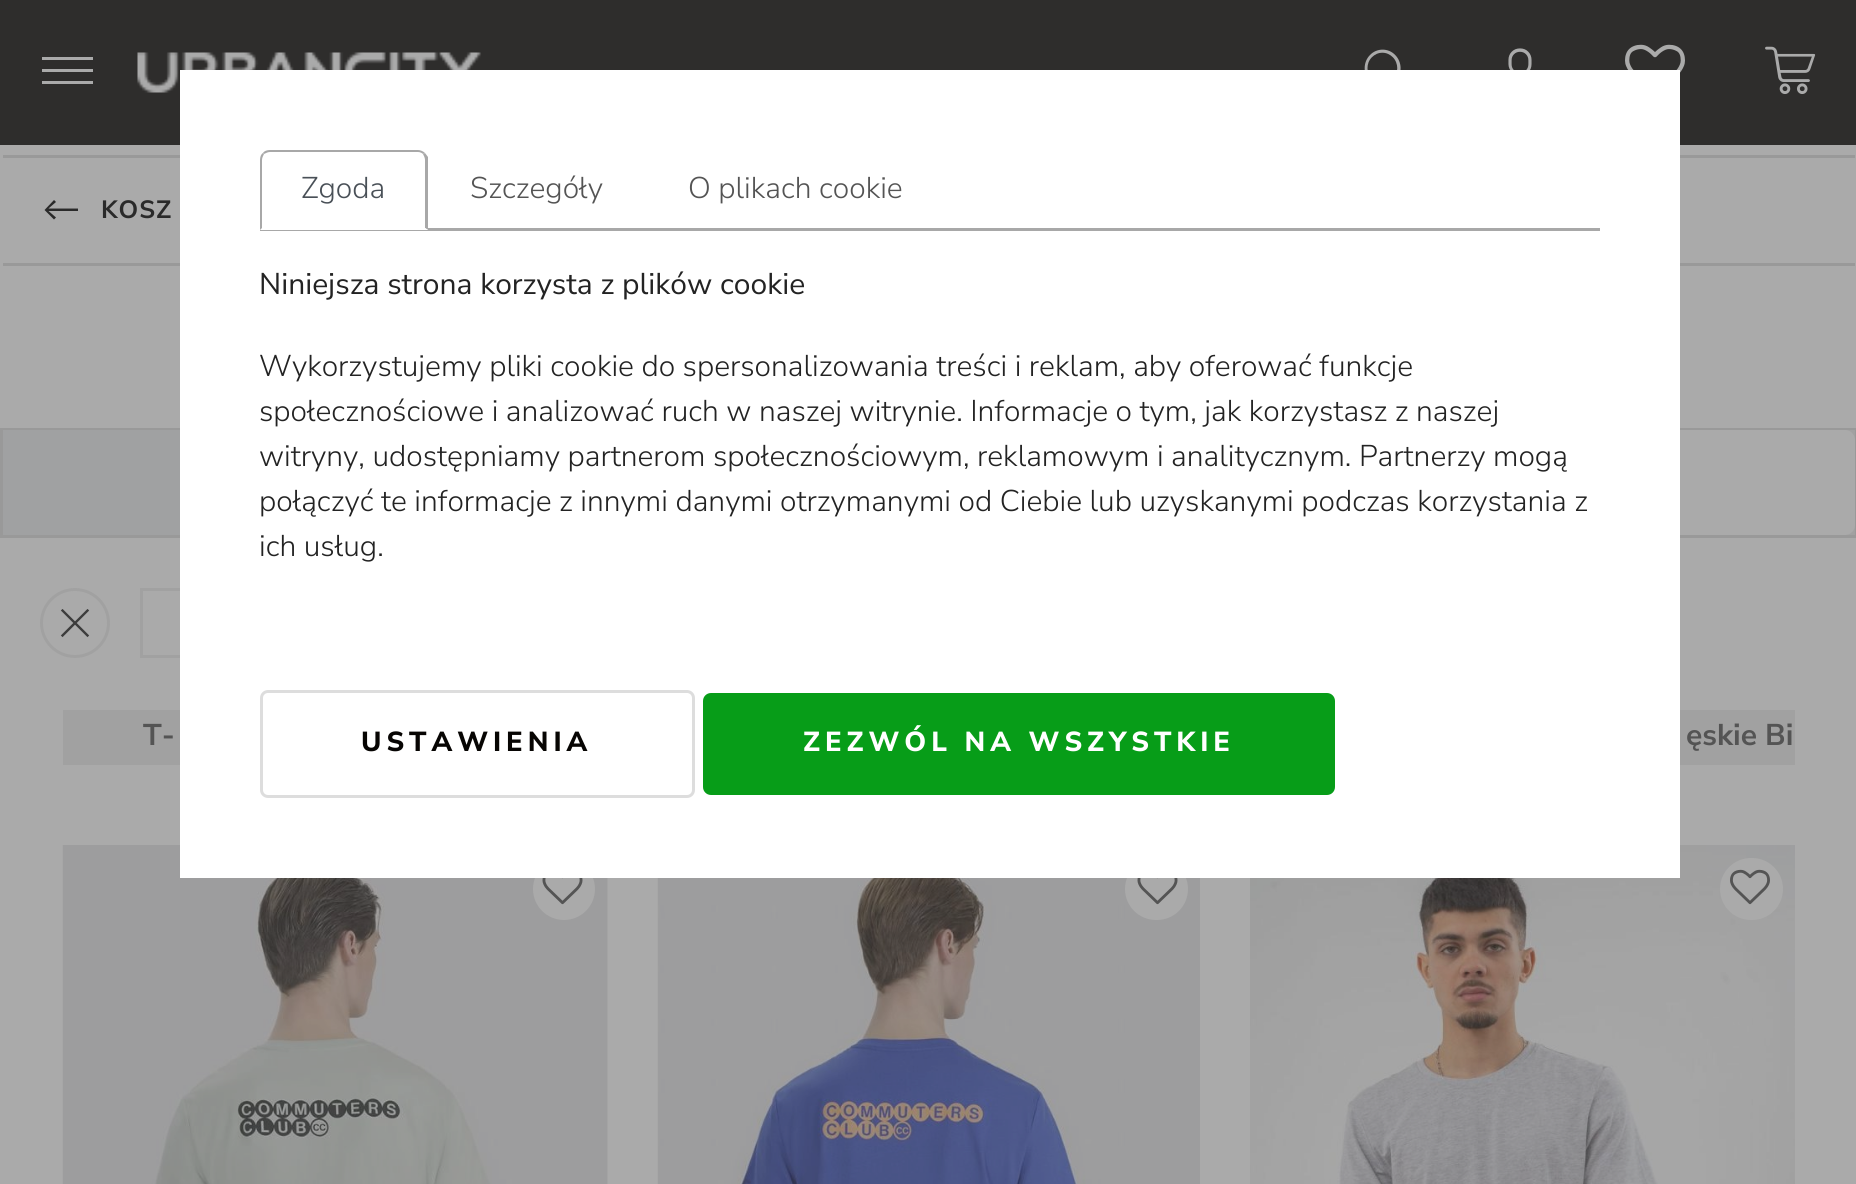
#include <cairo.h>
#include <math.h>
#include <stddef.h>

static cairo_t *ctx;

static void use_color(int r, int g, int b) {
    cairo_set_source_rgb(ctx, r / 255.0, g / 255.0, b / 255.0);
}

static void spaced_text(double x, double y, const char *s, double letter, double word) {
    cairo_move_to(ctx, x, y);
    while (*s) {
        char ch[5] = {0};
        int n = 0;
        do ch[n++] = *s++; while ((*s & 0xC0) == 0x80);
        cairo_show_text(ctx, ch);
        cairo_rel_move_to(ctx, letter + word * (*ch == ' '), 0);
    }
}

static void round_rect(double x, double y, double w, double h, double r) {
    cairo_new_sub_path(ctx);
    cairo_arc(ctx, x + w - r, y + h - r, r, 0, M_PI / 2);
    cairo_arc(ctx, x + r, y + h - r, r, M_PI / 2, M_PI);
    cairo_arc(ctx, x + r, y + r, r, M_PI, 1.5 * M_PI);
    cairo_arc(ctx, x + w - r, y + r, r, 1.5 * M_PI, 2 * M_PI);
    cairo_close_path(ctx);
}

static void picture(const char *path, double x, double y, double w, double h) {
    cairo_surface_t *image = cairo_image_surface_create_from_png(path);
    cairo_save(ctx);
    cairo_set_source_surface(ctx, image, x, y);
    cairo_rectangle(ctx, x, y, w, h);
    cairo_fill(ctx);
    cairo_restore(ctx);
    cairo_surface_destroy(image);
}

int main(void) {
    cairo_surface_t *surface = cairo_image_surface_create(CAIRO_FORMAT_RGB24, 1856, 1184);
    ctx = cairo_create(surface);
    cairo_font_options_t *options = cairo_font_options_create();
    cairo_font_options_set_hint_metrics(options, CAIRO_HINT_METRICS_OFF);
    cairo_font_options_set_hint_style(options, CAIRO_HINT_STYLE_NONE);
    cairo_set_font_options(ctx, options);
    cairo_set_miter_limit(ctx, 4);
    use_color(170, 170, 170);
    cairo_paint(ctx);
    use_color(46, 45, 44);
    cairo_rectangle(ctx, 0, 0, 1856, 145);
    cairo_fill(ctx);
    picture("img1.png", 137, 52, 345, 41);
    picture("img4.png", 1625, 44, 60, 29);
    use_color(153, 153, 153);
    cairo_rectangle(ctx, 3, 155, 1852, 3);
    cairo_fill(ctx);
    cairo_rectangle(ctx, 3, 263, 1852, 3);
    cairo_fill(ctx);
    cairo_rectangle(ctx, 1.5, 429.5, 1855, 107);
    cairo_set_line_width(ctx, 3);
    cairo_stroke(ctx);
    use_color(161, 161, 161);
    cairo_rectangle(ctx, 1845, 430, 10, 105);
    cairo_fill(ctx);
    use_color(170, 170, 170);
    round_rect(930, 430, 925, 105, 10);
    cairo_fill(ctx);
    cairo_rectangle(ctx, 141.5, 589.5, 362, 67);
    use_color(161, 161, 161);
    cairo_stroke(ctx);
    use_color(166, 166, 166);
    cairo_rectangle(ctx, 607, 878, 1, 306);
    cairo_fill(ctx);
    picture("img7.png", 62, 845, 546, 339);
    use_color(170, 170, 170);
    cairo_arc(ctx, 564, 889, 31, 0, 2 * M_PI);
    cairo_fill(ctx);
    picture("img9.png", 657, 878, 543, 306);
    round_rect(1125, 858, 63, 62, 31);
    cairo_fill(ctx);
    picture("img10.png", 1250, 845, 545, 339);
    use_color(255, 255, 255);
    cairo_rectangle(ctx, 180, 70, 1500, 808);
    cairo_fill(ctx);
    use_color(168, 168, 168);
    cairo_rectangle(ctx, 260, 228, 1340, 3);
    cairo_fill(ctx);
    use_color(255, 255, 255);
    cairo_new_path(ctx);
    cairo_move_to(ctx, 270, 150);
    cairo_line_to(ctx, 418, 150);
    cairo_curve_to(ctx, 423.5, 150, 428, 154.5, 428, 160);
    cairo_line_to(ctx, 428, 230);
    cairo_line_to(ctx, 260, 230);
    cairo_line_to(ctx, 260, 160);
    cairo_curve_to(ctx, 260, 154.5, 264.5, 150, 270, 150);
    cairo_close_path(ctx);
    cairo_fill(ctx);
    use_color(168, 168, 168);
    cairo_new_path(ctx);
    cairo_move_to(ctx, 270, 150);
    cairo_curve_to(ctx, 267, 150, 264, 151, 263, 153);
    cairo_line_to(ctx, 264, 154);
    cairo_curve_to(ctx, 266, 153, 268, 152, 270, 152);
    cairo_line_to(ctx, 418, 152);
    cairo_curve_to(ctx, 420, 152, 422, 153, 423, 154);
    cairo_line_to(ctx, 425, 153);
    cairo_curve_to(ctx, 423, 151, 420, 150, 418, 150);
    cairo_close_path(ctx);
    cairo_fill(ctx);
    cairo_new_path(ctx);
    cairo_move_to(ctx, 428, 157);
    cairo_line_to(ctx, 428, 230);
    cairo_line_to(ctx, 425, 228);
    cairo_line_to(ctx, 425, 160);
    cairo_curve_to(ctx, 425, 158, 424, 156, 423, 154);
    cairo_line_to(ctx, 425, 153);
    cairo_close_path(ctx);
    cairo_fill(ctx);
    use_color(255, 255, 255);
    cairo_new_path(ctx);
    cairo_move_to(ctx, 428, 230);
    cairo_line_to(ctx, 425, 228);
    cairo_line_to(ctx, 262, 228);
    cairo_line_to(ctx, 260, 230);
    cairo_close_path(ctx);
    cairo_fill(ctx);
    use_color(168, 168, 168);
    cairo_new_path(ctx);
    cairo_move_to(ctx, 260, 230);
    cairo_line_to(ctx, 262, 228);
    cairo_line_to(ctx, 262, 160);
    cairo_curve_to(ctx, 262, 158, 263, 156, 264, 154);
    cairo_line_to(ctx, 263, 153);
    cairo_curve_to(ctx, 261, 154, 260, 157, 260, 160);
    cairo_close_path(ctx);
    cairo_fill(ctx);
    cairo_select_font_face(ctx, "Nunito Sans Light", CAIRO_FONT_SLANT_NORMAL, CAIRO_FONT_WEIGHT_NORMAL);
    cairo_set_font_size(ctx, 30);
    use_color(73, 80, 87);
    cairo_move_to(ctx, 301, 198);
    cairo_show_text(ctx, "Zgoda");
    use_color(84, 84, 84);
    cairo_move_to(ctx, 470, 198);
    cairo_show_text(ctx, "Szczegóły");
    cairo_move_to(ctx, 688, 198);
    cairo_show_text(ctx, "O plikach cookie");
    cairo_select_font_face(ctx, "Nunito Sans", CAIRO_FONT_SLANT_NORMAL, CAIRO_FONT_WEIGHT_NORMAL);
    use_color(35, 35, 35);
    cairo_move_to(ctx, 259, 294);
    cairo_show_text(ctx, "Niniejsza strona korzysta z plików cookie");
    cairo_select_font_face(ctx, "Nunito Sans Light", CAIRO_FONT_SLANT_NORMAL, CAIRO_FONT_WEIGHT_NORMAL);
    cairo_move_to(ctx, 259, 376);
    cairo_show_text(ctx, "Wykorzystujemy pliki cookie do spersonalizowania treści i reklam, aby oferować funkcje");
    cairo_move_to(ctx, 259, 421);
    cairo_show_text(ctx, "społecznościowe i analizować ruch w naszej witrynie. Informacje o tym, jak korzystasz z naszej");
    cairo_move_to(ctx, 259, 466);
    cairo_show_text(ctx, "witryny, udostępniamy partnerom społecznościowym, reklamowym i analitycznym. Partnerzy mogą");
    cairo_move_to(ctx, 259, 511);
    cairo_show_text(ctx, "połączyć te informacje z innymi danymi otrzymanymi od Ciebie lub uzyskanymi podczas korzystania z");
    cairo_move_to(ctx, 259, 556);
    cairo_show_text(ctx, "ich usług.");
    round_rect(261.5, 691.5, 432, 105, 6.5);
    use_color(221, 221, 221);
    cairo_stroke(ctx);
    cairo_select_font_face(ctx, "Nunito Sans ExtraBold", CAIRO_FONT_SLANT_NORMAL, CAIRO_FONT_WEIGHT_NORMAL);
    cairo_set_font_size(ctx, 27.5);
    use_color(7, 5, 3);
    spaced_text(361, 751, "USTAWIENIA", 5, 0);
    use_color(7, 157, 24);
    round_rect(703, 693, 632, 102, 8);
    cairo_fill(ctx);
    use_color(255, 255, 255);
    spaced_text(803, 751, "ZEZWÓL NA WSZYSTKIE", 5, 0);
    use_color(170, 170, 170);
    cairo_new_path(ctx);
    cairo_move_to(ctx, 42, 57);
    cairo_line_to(ctx, 93, 57);
    cairo_line_to(ctx, 93, 60);
    cairo_line_to(ctx, 42, 60);
    cairo_close_path(ctx);
    cairo_move_to(ctx, 42, 69);
    cairo_line_to(ctx, 93, 69);
    cairo_line_to(ctx, 93, 72);
    cairo_line_to(ctx, 42, 72);
    cairo_close_path(ctx);
    cairo_move_to(ctx, 42, 81);
    cairo_line_to(ctx, 93, 81);
    cairo_line_to(ctx, 93, 84);
    cairo_line_to(ctx, 42, 84);
    cairo_close_path(ctx);
    cairo_fill(ctx);
    picture("img2.png", 1364, 49, 37, 21);
    picture("img3.png", 1508, 48, 24, 22);
    picture("img5.png", 1765, 46, 51, 48);
    use_color(42, 42, 42);
    cairo_new_path(ctx);
    cairo_move_to(ctx, 54, 219.5);
    cairo_line_to(ctx, 56, 217.5);
    cairo_line_to(ctx, 48.5, 211);
    cairo_line_to(ctx, 78, 211);
    cairo_line_to(ctx, 78, 208.5);
    cairo_line_to(ctx, 48.5, 208.5);
    cairo_line_to(ctx, 56, 202);
    cairo_line_to(ctx, 54, 200);
    cairo_line_to(ctx, 44.5, 210);
    cairo_close_path(ctx);
    cairo_fill(ctx);
    cairo_select_font_face(ctx, "Nunito Sans", CAIRO_FONT_SLANT_NORMAL, CAIRO_FONT_WEIGHT_BOLD);
    cairo_set_font_size(ctx, 25);
    spaced_text(101, 218, "KOSZ", 1, 0);
    use_color(160, 161, 162);
    cairo_rectangle(ctx, 3, 430, 177, 105);
    cairo_fill(ctx);
    cairo_arc(ctx, 75, 623, 33.5, 0, 2 * M_PI);
    use_color(161, 161, 161);
    cairo_stroke(ctx);
    picture("img6.png", 60, 609, 30, 29);
    cairo_rectangle(ctx, 63, 710, 117, 55);
    cairo_fill(ctx);
    cairo_set_font_size(ctx, 30);
    use_color(84, 84, 84);
    cairo_move_to(ctx, 143, 745);
    cairo_show_text(ctx, "T-");
    use_color(161, 161, 161);
    cairo_rectangle(ctx, 1680, 710, 115, 55);
    cairo_fill(ctx);
    use_color(84, 84, 84);
    cairo_move_to(ctx, 1686, 745);
    cairo_show_text(ctx, "ęskie Bi");
    picture("img8.png", 542, 878, 41, 27);
    picture("img8.png", 1137, 878, 41, 27);
    use_color(170, 170, 170);
    round_rect(1720, 858, 63, 62, 31);
    cairo_fill(ctx);
    picture("img11.png", 1730, 869, 40, 36);
    cairo_surface_write_to_png(surface, "result.png");
    cairo_font_options_destroy(options);
    cairo_destroy(ctx);
    cairo_surface_destroy(surface);
    return 0;
}
